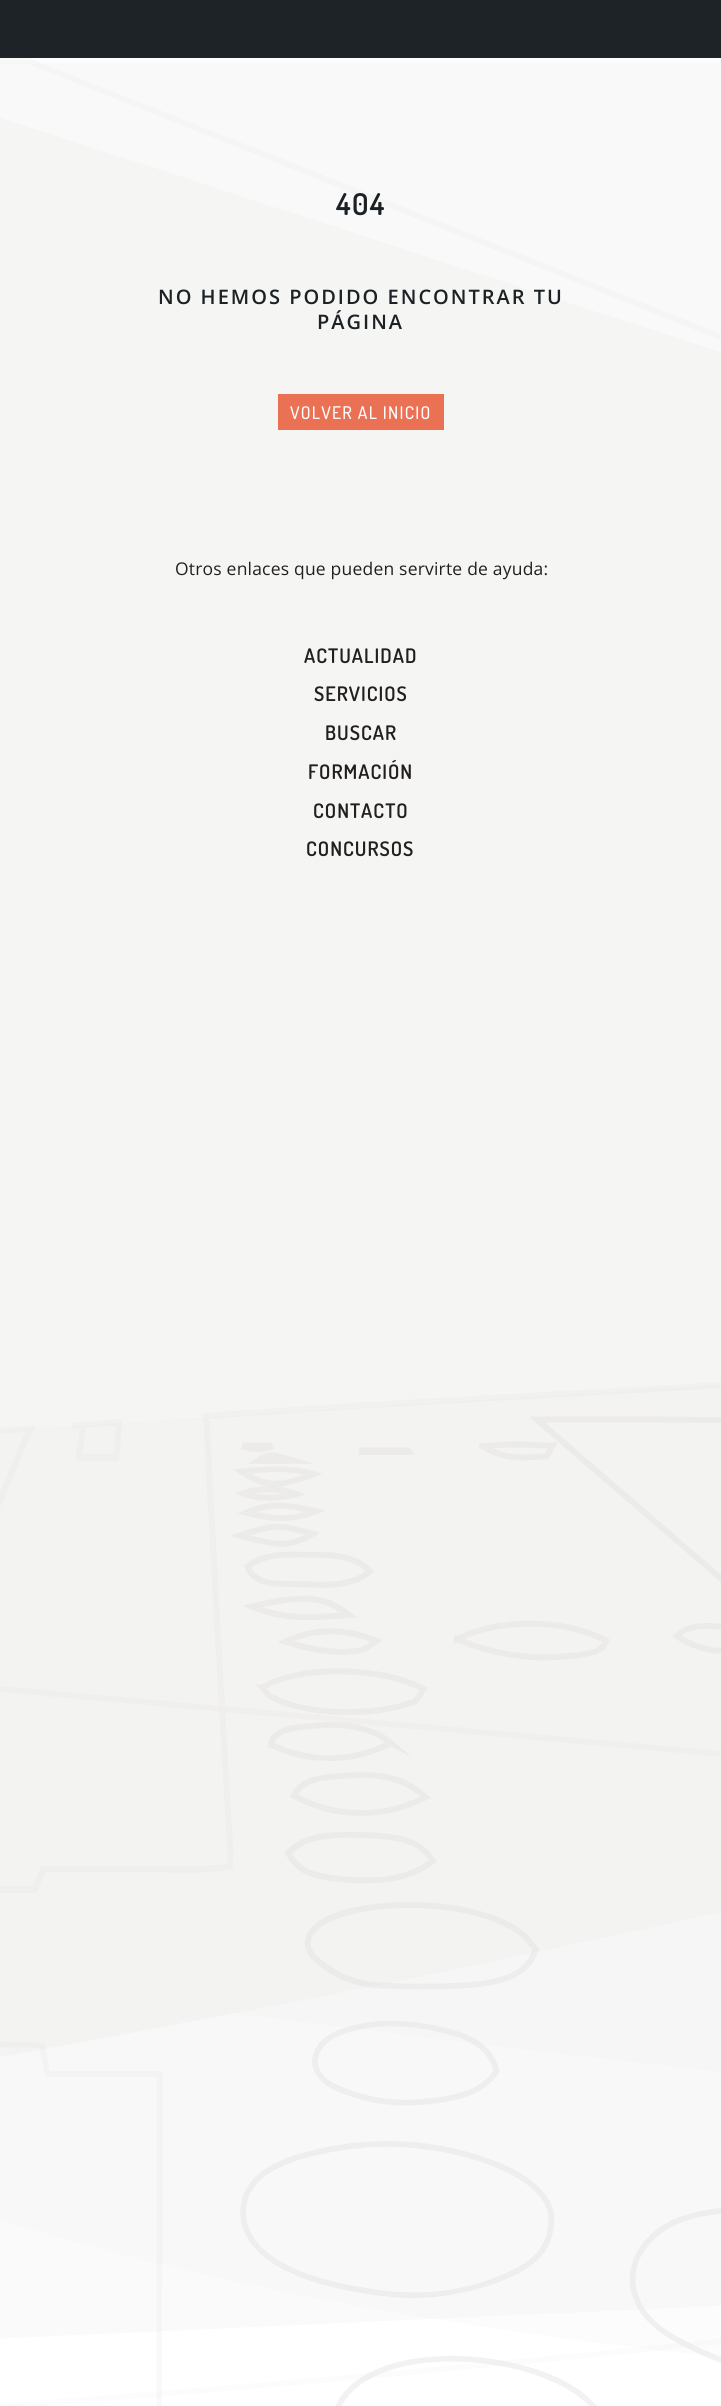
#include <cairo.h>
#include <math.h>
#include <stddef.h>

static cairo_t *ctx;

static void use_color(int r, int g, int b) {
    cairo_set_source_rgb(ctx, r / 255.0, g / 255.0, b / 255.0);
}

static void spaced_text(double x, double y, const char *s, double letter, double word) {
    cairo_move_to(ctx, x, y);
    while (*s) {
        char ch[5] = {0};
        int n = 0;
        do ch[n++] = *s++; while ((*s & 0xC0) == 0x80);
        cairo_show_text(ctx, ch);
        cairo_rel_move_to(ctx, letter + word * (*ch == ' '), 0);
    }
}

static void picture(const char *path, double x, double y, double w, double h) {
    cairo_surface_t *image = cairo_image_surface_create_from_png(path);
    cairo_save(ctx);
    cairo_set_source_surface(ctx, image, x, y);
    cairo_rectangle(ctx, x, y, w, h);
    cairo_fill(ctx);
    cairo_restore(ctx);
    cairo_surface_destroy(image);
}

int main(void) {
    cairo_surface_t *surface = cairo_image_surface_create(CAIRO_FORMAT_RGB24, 721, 2406);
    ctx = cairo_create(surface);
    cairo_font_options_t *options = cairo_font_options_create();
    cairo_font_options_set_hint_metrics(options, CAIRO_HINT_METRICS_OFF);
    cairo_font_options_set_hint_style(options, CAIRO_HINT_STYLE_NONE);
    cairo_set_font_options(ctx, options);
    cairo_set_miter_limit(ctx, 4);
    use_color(255, 255, 255);
    cairo_paint(ctx);
    use_color(29, 35, 39);
    cairo_rectangle(ctx, 0, 0, 721, 58);
    cairo_fill(ctx);
    picture("img1.png", 0, 58, 721, 2348);
    cairo_select_font_face(ctx, "Dosis SemiBold", CAIRO_FONT_SLANT_NORMAL, CAIRO_FONT_WEIGHT_NORMAL);
    cairo_set_font_size(ctx, 30);
    use_color(27, 33, 36);
    spaced_text(336, 215, "404", 1.5, 0);
    cairo_select_font_face(ctx, "Open Sans SemiBold", CAIRO_FONT_SLANT_NORMAL, CAIRO_FONT_WEIGHT_NORMAL);
    cairo_set_font_size(ctx, 20);
    spaced_text(158, 304, "NO HEMOS PODIDO ENCONTRAR TU", 2, 0);
    spaced_text(317, 329, "PÁGINA", 2, 0);
    use_color(235, 113, 85);
    cairo_rectangle(ctx, 278, 394, 166, 36);
    cairo_fill(ctx);
    cairo_select_font_face(ctx, "Dosis Medium", CAIRO_FONT_SLANT_NORMAL, CAIRO_FONT_WEIGHT_NORMAL);
    cairo_set_font_size(ctx, 17.5);
    use_color(255, 255, 255);
    spaced_text(290, 419, "VOLVER AL INICIO", 1.25, 0);
    cairo_select_font_face(ctx, "Open Sans", CAIRO_FONT_SLANT_NORMAL, CAIRO_FONT_WEIGHT_NORMAL);
    use_color(35, 31, 32);
    spaced_text(175, 575, "Otros enlaces que pueden servirte de ayuda:", 0.2, 0);
    cairo_select_font_face(ctx, "Dosis SemiBold", CAIRO_FONT_SLANT_NORMAL, CAIRO_FONT_WEIGHT_NORMAL);
    cairo_set_font_size(ctx, 20);
    spaced_text(304, 663, "ACTUALIDAD", 1, 0);
    spaced_text(314, 701, "SERVICIOS", 1, 0);
    spaced_text(325, 740, "BUSCAR", 1, 0);
    spaced_text(308, 779, "FORMACIÓN", 1, 0);
    spaced_text(313, 818, "CONTACTO", 1, 0);
    spaced_text(306, 856, "CONCURSOS", 1, 0);
    cairo_surface_write_to_png(surface, "result.png");
    cairo_font_options_destroy(options);
    cairo_destroy(ctx);
    cairo_surface_destroy(surface);
    return 0;
}
